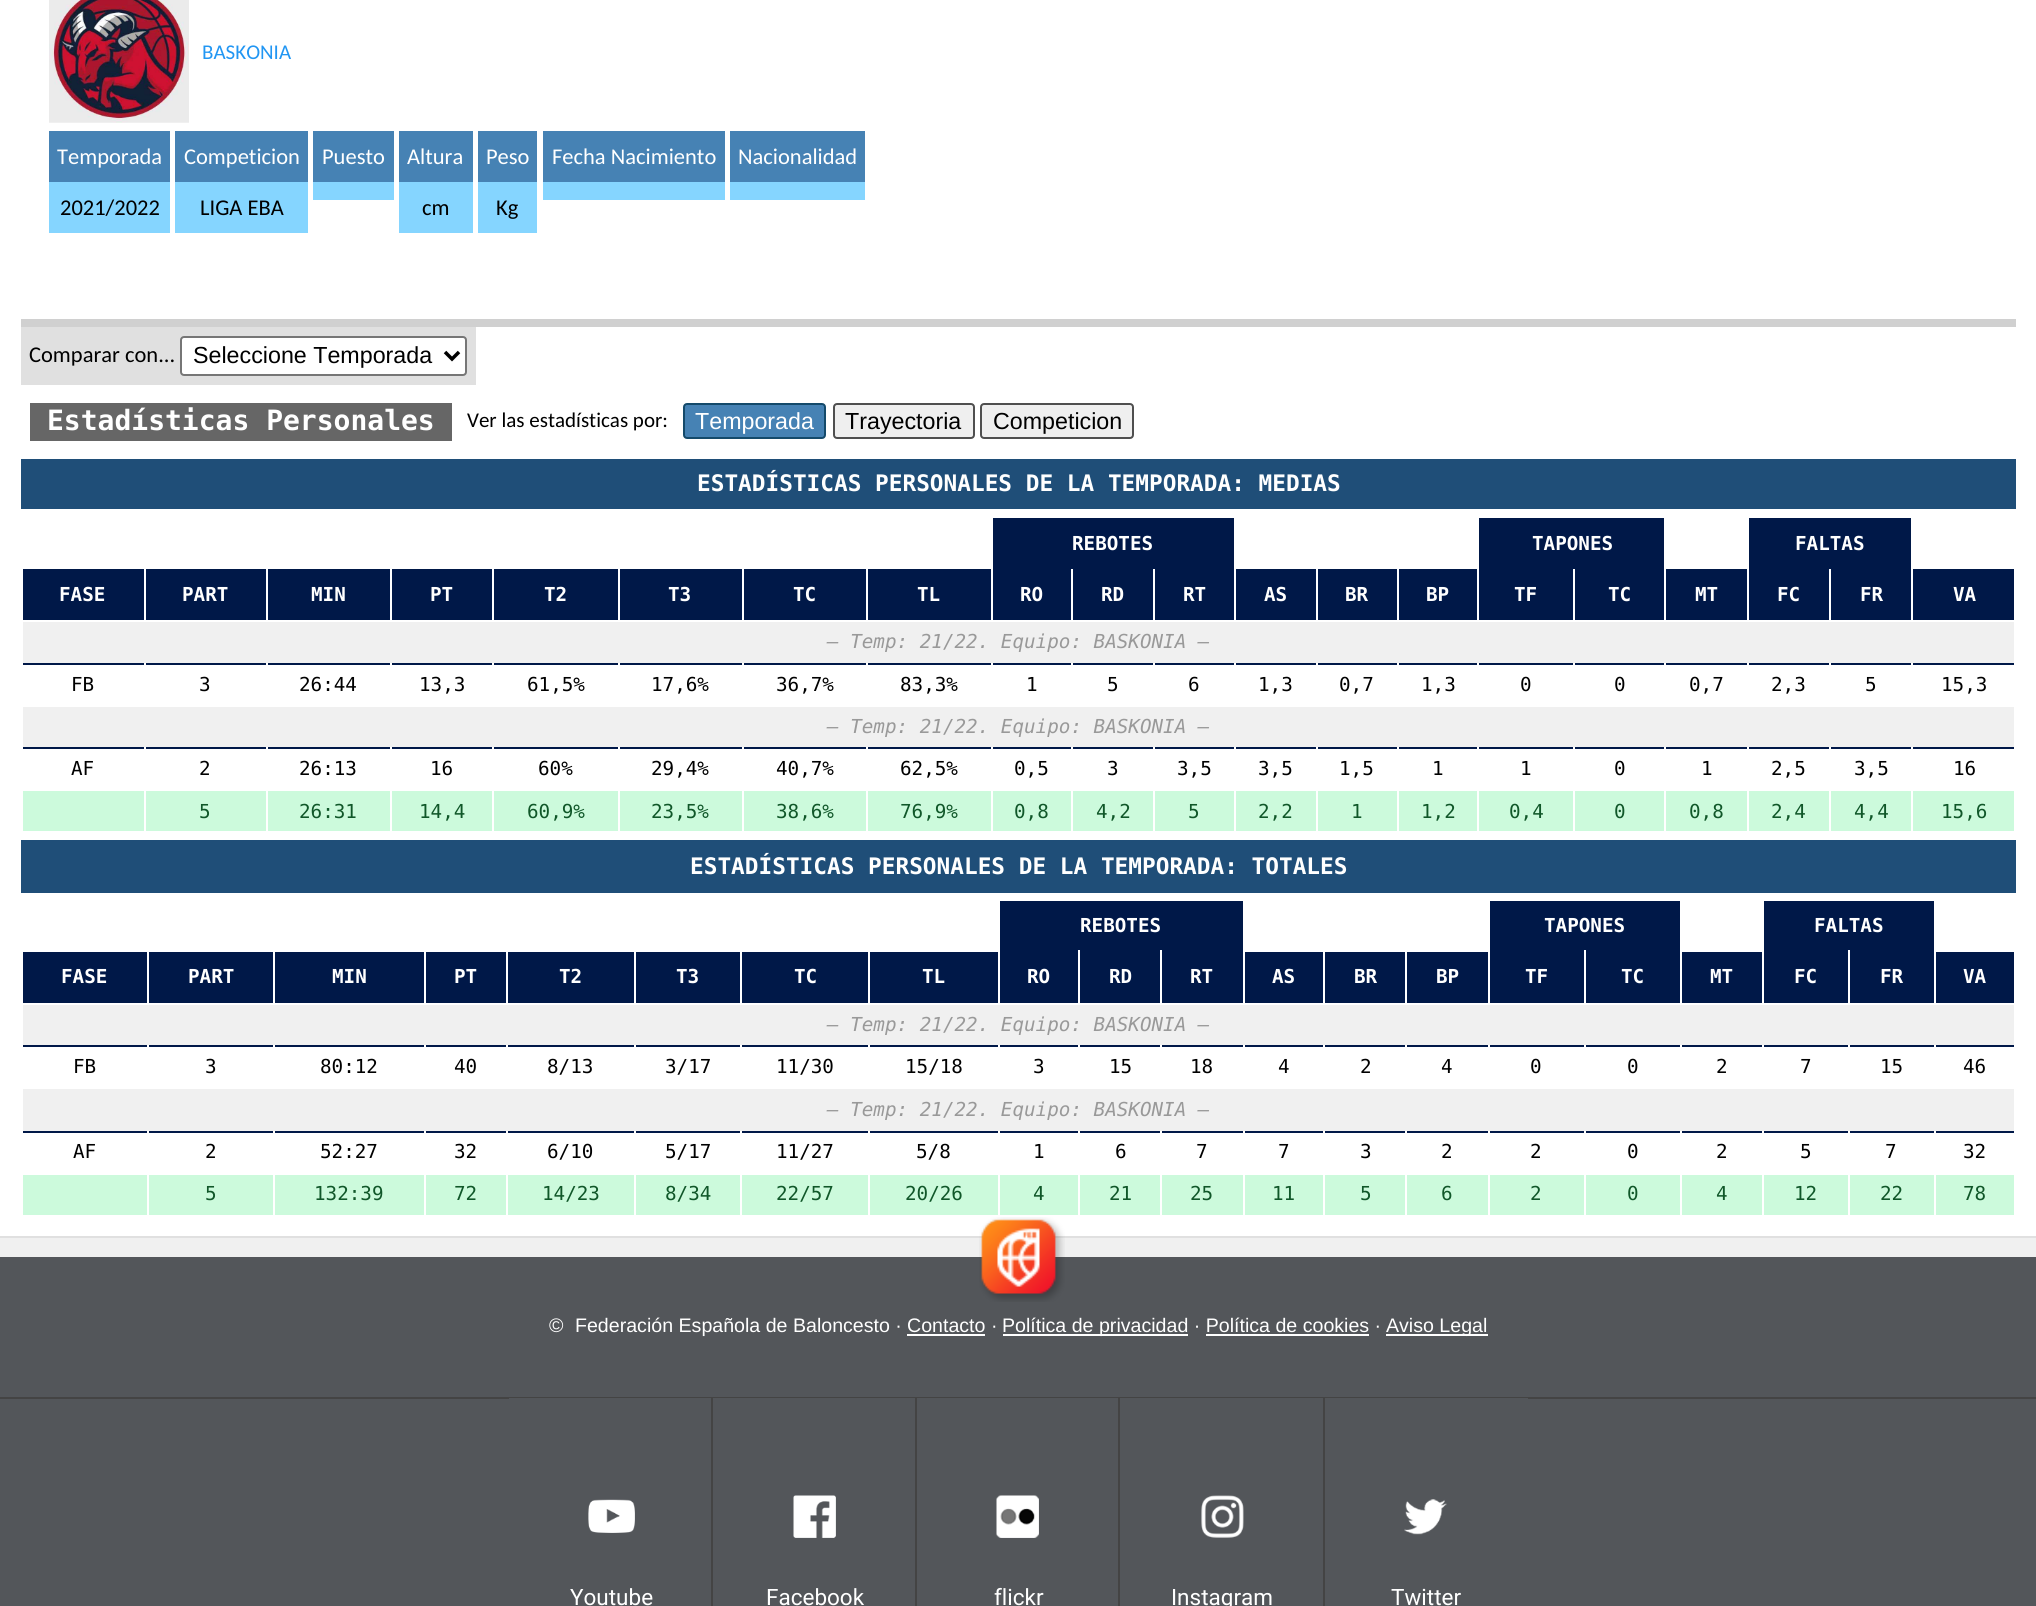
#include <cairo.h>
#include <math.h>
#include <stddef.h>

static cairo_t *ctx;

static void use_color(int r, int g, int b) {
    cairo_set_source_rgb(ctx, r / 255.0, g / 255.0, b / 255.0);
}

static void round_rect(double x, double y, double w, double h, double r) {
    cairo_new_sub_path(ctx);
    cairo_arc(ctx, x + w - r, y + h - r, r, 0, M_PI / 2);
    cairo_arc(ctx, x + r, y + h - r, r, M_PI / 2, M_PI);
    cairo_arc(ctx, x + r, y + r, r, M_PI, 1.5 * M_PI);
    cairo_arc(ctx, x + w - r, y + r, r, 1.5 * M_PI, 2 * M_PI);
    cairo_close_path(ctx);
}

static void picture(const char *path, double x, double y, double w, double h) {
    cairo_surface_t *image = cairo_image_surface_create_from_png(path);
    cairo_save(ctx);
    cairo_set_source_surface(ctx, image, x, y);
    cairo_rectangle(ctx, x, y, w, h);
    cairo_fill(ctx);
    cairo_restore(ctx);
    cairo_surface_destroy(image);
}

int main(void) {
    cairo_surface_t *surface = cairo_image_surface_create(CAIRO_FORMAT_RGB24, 2036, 1606);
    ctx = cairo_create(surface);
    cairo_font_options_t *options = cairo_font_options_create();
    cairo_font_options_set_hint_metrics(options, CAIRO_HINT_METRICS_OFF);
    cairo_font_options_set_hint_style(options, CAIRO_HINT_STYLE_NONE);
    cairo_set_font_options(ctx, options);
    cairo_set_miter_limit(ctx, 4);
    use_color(83, 86, 90);
    cairo_paint(ctx);
    use_color(255, 255, 255);
    cairo_rectangle(ctx, 0, 0, 2036, 1236);
    cairo_fill(ctx);
    use_color(208, 208, 208);
    cairo_rectangle(ctx, 21, 319, 1995, 8);
    cairo_fill(ctx);
    picture("img1.png", 49, 0, 140, 123);
    cairo_select_font_face(ctx, "Carlito", CAIRO_FONT_SLANT_NORMAL, CAIRO_FONT_WEIGHT_NORMAL);
    cairo_set_font_size(ctx, 21);
    use_color(33, 150, 243);
    cairo_move_to(ctx, 202, 59);
    cairo_show_text(ctx, "BASKONIA");
    use_color(70, 130, 180);
    cairo_rectangle(ctx, 49, 131, 121, 51);
    cairo_fill(ctx);
    cairo_set_font_size(ctx, 22.5);
    use_color(255, 255, 255);
    cairo_move_to(ctx, 57, 164);
    cairo_show_text(ctx, "Temporada");
    use_color(133, 213, 255);
    cairo_rectangle(ctx, 49, 182, 121, 51);
    cairo_fill(ctx);
    use_color(0, 0, 0);
    cairo_move_to(ctx, 60, 215);
    cairo_show_text(ctx, "2021/2022");
    use_color(70, 130, 180);
    cairo_rectangle(ctx, 175, 131, 133, 51);
    cairo_fill(ctx);
    use_color(255, 255, 255);
    cairo_move_to(ctx, 184, 164);
    cairo_show_text(ctx, "Competicion");
    use_color(133, 213, 255);
    cairo_rectangle(ctx, 175, 182, 133, 51);
    cairo_fill(ctx);
    use_color(0, 0, 0);
    cairo_move_to(ctx, 200, 215);
    cairo_show_text(ctx, "LIGA EBA");
    use_color(70, 130, 180);
    cairo_rectangle(ctx, 313, 131, 81, 51);
    cairo_fill(ctx);
    use_color(255, 255, 255);
    cairo_move_to(ctx, 322, 164);
    cairo_show_text(ctx, "Puesto");
    use_color(133, 213, 255);
    cairo_rectangle(ctx, 313, 182, 81, 18);
    cairo_fill(ctx);
    use_color(70, 130, 180);
    cairo_rectangle(ctx, 399, 131, 74, 51);
    cairo_fill(ctx);
    use_color(255, 255, 255);
    cairo_move_to(ctx, 407, 164);
    cairo_show_text(ctx, "Altura");
    use_color(133, 213, 255);
    cairo_rectangle(ctx, 399, 182, 74, 51);
    cairo_fill(ctx);
    use_color(0, 0, 0);
    cairo_move_to(ctx, 422, 215);
    cairo_show_text(ctx, "cm");
    use_color(70, 130, 180);
    cairo_rectangle(ctx, 478, 131, 59, 51);
    cairo_fill(ctx);
    use_color(255, 255, 255);
    cairo_move_to(ctx, 486, 164);
    cairo_show_text(ctx, "Peso");
    use_color(133, 213, 255);
    cairo_rectangle(ctx, 478, 182, 59, 51);
    cairo_fill(ctx);
    use_color(0, 0, 0);
    cairo_move_to(ctx, 496, 215);
    cairo_show_text(ctx, "Kg");
    use_color(70, 130, 180);
    cairo_rectangle(ctx, 543, 131, 182, 51);
    cairo_fill(ctx);
    use_color(255, 255, 255);
    cairo_move_to(ctx, 552, 164);
    cairo_show_text(ctx, "Fecha Nacimiento");
    use_color(133, 213, 255);
    cairo_rectangle(ctx, 543, 182, 182, 18);
    cairo_fill(ctx);
    use_color(70, 130, 180);
    cairo_rectangle(ctx, 730, 131, 135, 51);
    cairo_fill(ctx);
    use_color(255, 255, 255);
    cairo_move_to(ctx, 738, 164);
    cairo_show_text(ctx, "Nacionalidad");
    use_color(133, 213, 255);
    cairo_rectangle(ctx, 730, 182, 135, 18);
    cairo_fill(ctx);
    use_color(224, 224, 224);
    cairo_rectangle(ctx, 21, 327, 455, 58);
    cairo_fill(ctx);
    use_color(0, 0, 0);
    cairo_move_to(ctx, 29, 362);
    cairo_show_text(ctx, "Comparar con...");
    use_color(255, 255, 255);
    round_rect(181, 337, 285, 38, 3);
    cairo_fill_preserve(ctx);
    use_color(118, 118, 118);
    cairo_stroke(ctx);
    cairo_new_path(ctx);
    cairo_move_to(ctx, 445, 352);
    cairo_line_to(ctx, 452, 359);
    cairo_line_to(ctx, 459, 352);
    use_color(0, 0, 0);
    cairo_set_line_width(ctx, 3.5);
    cairo_stroke(ctx);
    cairo_select_font_face(ctx, "Liberation Sans", CAIRO_FONT_SLANT_NORMAL, CAIRO_FONT_WEIGHT_NORMAL);
    cairo_set_font_size(ctx, 23.25);
    cairo_move_to(ctx, 193, 363);
    cairo_show_text(ctx, "Seleccione Temporada");
    use_color(102, 102, 102);
    cairo_rectangle(ctx, 30, 403, 422, 38);
    cairo_fill(ctx);
    cairo_select_font_face(ctx, "DejaVu Sans Mono", CAIRO_FONT_SLANT_NORMAL, CAIRO_FONT_WEIGHT_BOLD);
    cairo_set_font_size(ctx, 28);
    use_color(255, 255, 255);
    cairo_move_to(ctx, 47, 430);
    cairo_show_text(ctx, "Estadísticas Personales");
    cairo_select_font_face(ctx, "Carlito", CAIRO_FONT_SLANT_NORMAL, CAIRO_FONT_WEIGHT_NORMAL);
    cairo_set_font_size(ctx, 21);
    use_color(0, 0, 0);
    cairo_move_to(ctx, 467, 427);
    cairo_show_text(ctx, "Ver las estadísticas por:");
    use_color(70, 130, 180);
    round_rect(684, 404, 141, 34, 3);
    cairo_fill_preserve(ctx);
    use_color(20, 74, 107);
    cairo_set_line_width(ctx, 2);
    cairo_stroke(ctx);
    cairo_select_font_face(ctx, "Liberation Sans", CAIRO_FONT_SLANT_NORMAL, CAIRO_FONT_WEIGHT_NORMAL);
    cairo_set_font_size(ctx, 23.25);
    use_color(255, 255, 255);
    cairo_move_to(ctx, 695, 429);
    cairo_show_text(ctx, "Temporada");
    use_color(239, 239, 239);
    round_rect(834, 404, 140, 34, 3);
    cairo_fill_preserve(ctx);
    use_color(79, 79, 79);
    cairo_stroke(ctx);
    use_color(0, 0, 0);
    cairo_move_to(ctx, 845, 429);
    cairo_show_text(ctx, "Trayectoria");
    use_color(239, 239, 239);
    round_rect(981, 404, 152, 34, 3);
    cairo_fill_preserve(ctx);
    use_color(79, 79, 79);
    cairo_stroke(ctx);
    use_color(0, 0, 0);
    cairo_move_to(ctx, 993, 429);
    cairo_show_text(ctx, "Competicion");
    use_color(31, 78, 120);
    cairo_rectangle(ctx, 21, 459, 1995, 50);
    cairo_fill(ctx);
    cairo_select_font_face(ctx, "DejaVu Sans Mono", CAIRO_FONT_SLANT_NORMAL, CAIRO_FONT_WEIGHT_BOLD);
    cairo_set_font_size(ctx, 22.75);
    use_color(255, 255, 255);
    cairo_move_to(ctx, 697, 491);
    cairo_show_text(ctx, "ESTADÍSTICAS PERSONALES DE LA TEMPORADA: MEDIAS");
    use_color(0, 24, 72);
    cairo_rectangle(ctx, 993, 518, 241, 51);
    cairo_fill(ctx);
    cairo_set_font_size(ctx, 19.25);
    use_color(255, 255, 255);
    cairo_move_to(ctx, 1072, 550);
    cairo_show_text(ctx, "REBOTES");
    use_color(0, 24, 72);
    cairo_rectangle(ctx, 1479, 518, 185, 51);
    cairo_fill(ctx);
    use_color(255, 255, 255);
    cairo_move_to(ctx, 1532, 550);
    cairo_show_text(ctx, "TAPONES");
    use_color(0, 24, 72);
    cairo_rectangle(ctx, 1749, 518, 162, 51);
    cairo_fill(ctx);
    use_color(255, 255, 255);
    cairo_move_to(ctx, 1795, 550);
    cairo_show_text(ctx, "FALTAS");
    use_color(0, 24, 72);
    cairo_rectangle(ctx, 23, 569, 121, 51);
    cairo_fill(ctx);
    use_color(255, 255, 255);
    cairo_move_to(ctx, 59, 601);
    cairo_show_text(ctx, "FASE");
    use_color(0, 24, 72);
    cairo_rectangle(ctx, 146, 569, 120, 51);
    cairo_fill(ctx);
    use_color(255, 255, 255);
    cairo_move_to(ctx, 182, 601);
    cairo_show_text(ctx, "PART");
    use_color(0, 24, 72);
    cairo_rectangle(ctx, 268, 569, 122, 51);
    cairo_fill(ctx);
    use_color(255, 255, 255);
    cairo_move_to(ctx, 311, 601);
    cairo_show_text(ctx, "MIN");
    use_color(0, 24, 72);
    cairo_rectangle(ctx, 392, 569, 100, 51);
    cairo_fill(ctx);
    use_color(255, 255, 255);
    cairo_move_to(ctx, 430, 601);
    cairo_show_text(ctx, "PT");
    use_color(0, 24, 72);
    cairo_rectangle(ctx, 494, 569, 124, 51);
    cairo_fill(ctx);
    use_color(255, 255, 255);
    cairo_move_to(ctx, 544, 601);
    cairo_show_text(ctx, "T2");
    use_color(0, 24, 72);
    cairo_rectangle(ctx, 620, 569, 122, 51);
    cairo_fill(ctx);
    use_color(255, 255, 255);
    cairo_move_to(ctx, 668, 601);
    cairo_show_text(ctx, "T3");
    use_color(0, 24, 72);
    cairo_rectangle(ctx, 744, 569, 122, 51);
    cairo_fill(ctx);
    use_color(255, 255, 255);
    cairo_move_to(ctx, 793, 601);
    cairo_show_text(ctx, "TC");
    use_color(0, 24, 72);
    cairo_rectangle(ctx, 868, 569, 123, 51);
    cairo_fill(ctx);
    use_color(255, 255, 255);
    cairo_move_to(ctx, 917, 601);
    cairo_show_text(ctx, "TL");
    use_color(0, 24, 72);
    cairo_rectangle(ctx, 993, 569, 78, 51);
    cairo_fill(ctx);
    use_color(255, 255, 255);
    cairo_move_to(ctx, 1020, 601);
    cairo_show_text(ctx, "RO");
    use_color(0, 24, 72);
    cairo_rectangle(ctx, 1073, 569, 80, 51);
    cairo_fill(ctx);
    use_color(255, 255, 255);
    cairo_move_to(ctx, 1101, 601);
    cairo_show_text(ctx, "RD");
    use_color(0, 24, 72);
    cairo_rectangle(ctx, 1155, 569, 79, 51);
    cairo_fill(ctx);
    use_color(255, 255, 255);
    cairo_move_to(ctx, 1183, 601);
    cairo_show_text(ctx, "RT");
    use_color(0, 24, 72);
    cairo_rectangle(ctx, 1236, 569, 80, 51);
    cairo_fill(ctx);
    use_color(255, 255, 255);
    cairo_move_to(ctx, 1264, 601);
    cairo_show_text(ctx, "AS");
    use_color(0, 24, 72);
    cairo_rectangle(ctx, 1318, 569, 79, 51);
    cairo_fill(ctx);
    use_color(255, 255, 255);
    cairo_move_to(ctx, 1345, 601);
    cairo_show_text(ctx, "BR");
    use_color(0, 24, 72);
    cairo_rectangle(ctx, 1399, 569, 78, 51);
    cairo_fill(ctx);
    use_color(255, 255, 255);
    cairo_move_to(ctx, 1426, 601);
    cairo_show_text(ctx, "BP");
    use_color(0, 24, 72);
    cairo_rectangle(ctx, 1479, 569, 94, 51);
    cairo_fill(ctx);
    use_color(255, 255, 255);
    cairo_move_to(ctx, 1514, 601);
    cairo_show_text(ctx, "TF");
    use_color(0, 24, 72);
    cairo_rectangle(ctx, 1575, 569, 89, 51);
    cairo_fill(ctx);
    use_color(255, 255, 255);
    cairo_move_to(ctx, 1608, 601);
    cairo_show_text(ctx, "TC");
    use_color(0, 24, 72);
    cairo_rectangle(ctx, 1666, 569, 81, 51);
    cairo_fill(ctx);
    use_color(255, 255, 255);
    cairo_move_to(ctx, 1695, 601);
    cairo_show_text(ctx, "MT");
    use_color(0, 24, 72);
    cairo_rectangle(ctx, 1749, 569, 80, 51);
    cairo_fill(ctx);
    use_color(255, 255, 255);
    cairo_move_to(ctx, 1777, 601);
    cairo_show_text(ctx, "FC");
    use_color(0, 24, 72);
    cairo_rectangle(ctx, 1831, 569, 80, 51);
    cairo_fill(ctx);
    use_color(255, 255, 255);
    cairo_move_to(ctx, 1860, 601);
    cairo_show_text(ctx, "FR");
    use_color(0, 24, 72);
    cairo_rectangle(ctx, 1913, 569, 101, 51);
    cairo_fill(ctx);
    use_color(255, 255, 255);
    cairo_move_to(ctx, 1953, 601);
    cairo_show_text(ctx, "VA");
    use_color(240, 240, 240);
    cairo_rectangle(ctx, 23, 622, 1991, 41);
    cairo_fill(ctx);
    cairo_select_font_face(ctx, "DejaVu Sans Mono", CAIRO_FONT_SLANT_ITALIC, CAIRO_FONT_WEIGHT_NORMAL);
    use_color(153, 153, 153);
    cairo_move_to(ctx, 827, 648);
    cairo_show_text(ctx, "— Temp: 21/22. Equipo: BASKONIA —");
    use_color(0, 24, 72);
    cairo_rectangle(ctx, 21, 663, 1995, 2);
    cairo_fill(ctx);
    use_color(255, 255, 255);
    cairo_rectangle(ctx, 144, 663, 2, 2);
    cairo_fill(ctx);
    cairo_rectangle(ctx, 21, 663, 2, 2);
    cairo_fill(ctx);
    cairo_select_font_face(ctx, "DejaVu Sans Mono", CAIRO_FONT_SLANT_NORMAL, CAIRO_FONT_WEIGHT_NORMAL);
    use_color(0, 0, 0);
    cairo_move_to(ctx, 71, 691);
    cairo_show_text(ctx, "FB");
    use_color(255, 255, 255);
    cairo_rectangle(ctx, 266, 663, 2, 2);
    cairo_fill(ctx);
    use_color(0, 0, 0);
    cairo_move_to(ctx, 199, 691);
    cairo_show_text(ctx, "3");
    use_color(255, 255, 255);
    cairo_rectangle(ctx, 390, 663, 2, 2);
    cairo_fill(ctx);
    use_color(0, 0, 0);
    cairo_move_to(ctx, 299, 691);
    cairo_show_text(ctx, "26:44");
    use_color(255, 255, 255);
    cairo_rectangle(ctx, 492, 663, 2, 2);
    cairo_fill(ctx);
    use_color(0, 0, 0);
    cairo_move_to(ctx, 419, 691);
    cairo_show_text(ctx, "13,3");
    use_color(255, 255, 255);
    cairo_rectangle(ctx, 618, 663, 2, 2);
    cairo_fill(ctx);
    use_color(0, 0, 0);
    cairo_move_to(ctx, 527, 691);
    cairo_show_text(ctx, "61,5%");
    use_color(255, 255, 255);
    cairo_rectangle(ctx, 742, 663, 2, 2);
    cairo_fill(ctx);
    use_color(0, 0, 0);
    cairo_move_to(ctx, 651, 691);
    cairo_show_text(ctx, "17,6%");
    use_color(255, 255, 255);
    cairo_rectangle(ctx, 866, 663, 2, 2);
    cairo_fill(ctx);
    use_color(0, 0, 0);
    cairo_move_to(ctx, 776, 691);
    cairo_show_text(ctx, "36,7%");
    use_color(255, 255, 255);
    cairo_rectangle(ctx, 991, 663, 2, 2);
    cairo_fill(ctx);
    use_color(0, 0, 0);
    cairo_move_to(ctx, 900, 691);
    cairo_show_text(ctx, "83,3%");
    use_color(255, 255, 255);
    cairo_rectangle(ctx, 1071, 663, 2, 2);
    cairo_fill(ctx);
    use_color(0, 0, 0);
    cairo_move_to(ctx, 1026, 691);
    cairo_show_text(ctx, "1");
    use_color(255, 255, 255);
    cairo_rectangle(ctx, 1153, 663, 2, 2);
    cairo_fill(ctx);
    use_color(0, 0, 0);
    cairo_move_to(ctx, 1107, 691);
    cairo_show_text(ctx, "5");
    use_color(255, 255, 255);
    cairo_rectangle(ctx, 1234, 663, 2, 2);
    cairo_fill(ctx);
    use_color(0, 0, 0);
    cairo_move_to(ctx, 1188, 691);
    cairo_show_text(ctx, "6");
    use_color(255, 255, 255);
    cairo_rectangle(ctx, 1316, 663, 2, 2);
    cairo_fill(ctx);
    use_color(0, 0, 0);
    cairo_move_to(ctx, 1258, 691);
    cairo_show_text(ctx, "1,3");
    use_color(255, 255, 255);
    cairo_rectangle(ctx, 1397, 663, 2, 2);
    cairo_fill(ctx);
    use_color(0, 0, 0);
    cairo_move_to(ctx, 1339, 691);
    cairo_show_text(ctx, "0,7");
    use_color(255, 255, 255);
    cairo_rectangle(ctx, 1477, 663, 2, 2);
    cairo_fill(ctx);
    use_color(0, 0, 0);
    cairo_move_to(ctx, 1421, 691);
    cairo_show_text(ctx, "1,3");
    use_color(255, 255, 255);
    cairo_rectangle(ctx, 1573, 663, 2, 2);
    cairo_fill(ctx);
    use_color(0, 0, 0);
    cairo_move_to(ctx, 1520, 691);
    cairo_show_text(ctx, "0");
    use_color(255, 255, 255);
    cairo_rectangle(ctx, 1664, 663, 2, 2);
    cairo_fill(ctx);
    use_color(0, 0, 0);
    cairo_move_to(ctx, 1614, 691);
    cairo_show_text(ctx, "0");
    use_color(255, 255, 255);
    cairo_rectangle(ctx, 1747, 663, 2, 2);
    cairo_fill(ctx);
    use_color(0, 0, 0);
    cairo_move_to(ctx, 1689, 691);
    cairo_show_text(ctx, "0,7");
    use_color(255, 255, 255);
    cairo_rectangle(ctx, 1829, 663, 2, 2);
    cairo_fill(ctx);
    use_color(0, 0, 0);
    cairo_move_to(ctx, 1771, 691);
    cairo_show_text(ctx, "2,3");
    use_color(255, 255, 255);
    cairo_rectangle(ctx, 1911, 663, 2, 2);
    cairo_fill(ctx);
    use_color(0, 0, 0);
    cairo_move_to(ctx, 1865, 691);
    cairo_show_text(ctx, "5");
    use_color(255, 255, 255);
    cairo_rectangle(ctx, 2014, 663, 2, 2);
    cairo_fill(ctx);
    use_color(0, 0, 0);
    cairo_move_to(ctx, 1941, 691);
    cairo_show_text(ctx, "15,3");
    use_color(240, 240, 240);
    cairo_rectangle(ctx, 23, 707, 1991, 40);
    cairo_fill(ctx);
    cairo_select_font_face(ctx, "DejaVu Sans Mono", CAIRO_FONT_SLANT_ITALIC, CAIRO_FONT_WEIGHT_NORMAL);
    use_color(153, 153, 153);
    cairo_move_to(ctx, 827, 733);
    cairo_show_text(ctx, "— Temp: 21/22. Equipo: BASKONIA —");
    use_color(0, 24, 72);
    cairo_rectangle(ctx, 21, 747, 1995, 2);
    cairo_fill(ctx);
    use_color(255, 255, 255);
    cairo_rectangle(ctx, 144, 747, 2, 2);
    cairo_fill(ctx);
    cairo_rectangle(ctx, 21, 747, 2, 2);
    cairo_fill(ctx);
    cairo_select_font_face(ctx, "DejaVu Sans Mono", CAIRO_FONT_SLANT_NORMAL, CAIRO_FONT_WEIGHT_NORMAL);
    use_color(0, 0, 0);
    cairo_move_to(ctx, 71, 775);
    cairo_show_text(ctx, "AF");
    use_color(255, 255, 255);
    cairo_rectangle(ctx, 266, 747, 2, 2);
    cairo_fill(ctx);
    use_color(0, 0, 0);
    cairo_move_to(ctx, 199, 775);
    cairo_show_text(ctx, "2");
    use_color(255, 255, 255);
    cairo_rectangle(ctx, 390, 747, 2, 2);
    cairo_fill(ctx);
    use_color(0, 0, 0);
    cairo_move_to(ctx, 299, 775);
    cairo_show_text(ctx, "26:13");
    use_color(255, 255, 255);
    cairo_rectangle(ctx, 492, 747, 2, 2);
    cairo_fill(ctx);
    use_color(0, 0, 0);
    cairo_move_to(ctx, 430, 775);
    cairo_show_text(ctx, "16");
    use_color(255, 255, 255);
    cairo_rectangle(ctx, 618, 747, 2, 2);
    cairo_fill(ctx);
    use_color(0, 0, 0);
    cairo_move_to(ctx, 538, 775);
    cairo_show_text(ctx, "60%");
    use_color(255, 255, 255);
    cairo_rectangle(ctx, 742, 747, 2, 2);
    cairo_fill(ctx);
    use_color(0, 0, 0);
    cairo_move_to(ctx, 651, 775);
    cairo_show_text(ctx, "29,4%");
    use_color(255, 255, 255);
    cairo_rectangle(ctx, 866, 747, 2, 2);
    cairo_fill(ctx);
    use_color(0, 0, 0);
    cairo_move_to(ctx, 776, 775);
    cairo_show_text(ctx, "40,7%");
    use_color(255, 255, 255);
    cairo_rectangle(ctx, 991, 747, 2, 2);
    cairo_fill(ctx);
    use_color(0, 0, 0);
    cairo_move_to(ctx, 900, 775);
    cairo_show_text(ctx, "62,5%");
    use_color(255, 255, 255);
    cairo_rectangle(ctx, 1071, 747, 2, 2);
    cairo_fill(ctx);
    use_color(0, 0, 0);
    cairo_move_to(ctx, 1014, 775);
    cairo_show_text(ctx, "0,5");
    use_color(255, 255, 255);
    cairo_rectangle(ctx, 1153, 747, 2, 2);
    cairo_fill(ctx);
    use_color(0, 0, 0);
    cairo_move_to(ctx, 1107, 775);
    cairo_show_text(ctx, "3");
    use_color(255, 255, 255);
    cairo_rectangle(ctx, 1234, 747, 2, 2);
    cairo_fill(ctx);
    use_color(0, 0, 0);
    cairo_move_to(ctx, 1177, 775);
    cairo_show_text(ctx, "3,5");
    use_color(255, 255, 255);
    cairo_rectangle(ctx, 1316, 747, 2, 2);
    cairo_fill(ctx);
    use_color(0, 0, 0);
    cairo_move_to(ctx, 1258, 775);
    cairo_show_text(ctx, "3,5");
    use_color(255, 255, 255);
    cairo_rectangle(ctx, 1397, 747, 2, 2);
    cairo_fill(ctx);
    use_color(0, 0, 0);
    cairo_move_to(ctx, 1339, 775);
    cairo_show_text(ctx, "1,5");
    use_color(255, 255, 255);
    cairo_rectangle(ctx, 1477, 747, 2, 2);
    cairo_fill(ctx);
    use_color(0, 0, 0);
    cairo_move_to(ctx, 1432, 775);
    cairo_show_text(ctx, "1");
    use_color(255, 255, 255);
    cairo_rectangle(ctx, 1573, 747, 2, 2);
    cairo_fill(ctx);
    use_color(0, 0, 0);
    cairo_move_to(ctx, 1520, 775);
    cairo_show_text(ctx, "1");
    use_color(255, 255, 255);
    cairo_rectangle(ctx, 1664, 747, 2, 2);
    cairo_fill(ctx);
    use_color(0, 0, 0);
    cairo_move_to(ctx, 1614, 775);
    cairo_show_text(ctx, "0");
    use_color(255, 255, 255);
    cairo_rectangle(ctx, 1747, 747, 2, 2);
    cairo_fill(ctx);
    use_color(0, 0, 0);
    cairo_move_to(ctx, 1701, 775);
    cairo_show_text(ctx, "1");
    use_color(255, 255, 255);
    cairo_rectangle(ctx, 1829, 747, 2, 2);
    cairo_fill(ctx);
    use_color(0, 0, 0);
    cairo_move_to(ctx, 1771, 775);
    cairo_show_text(ctx, "2,5");
    use_color(255, 255, 255);
    cairo_rectangle(ctx, 1911, 747, 2, 2);
    cairo_fill(ctx);
    use_color(0, 0, 0);
    cairo_move_to(ctx, 1854, 775);
    cairo_show_text(ctx, "3,5");
    use_color(255, 255, 255);
    cairo_rectangle(ctx, 2014, 747, 2, 2);
    cairo_fill(ctx);
    use_color(0, 0, 0);
    cairo_move_to(ctx, 1953, 775);
    cairo_show_text(ctx, "16");
    use_color(204, 250, 220);
    cairo_rectangle(ctx, 23, 791, 1991, 40);
    cairo_fill(ctx);
    use_color(255, 255, 255);
    cairo_rectangle(ctx, 144, 789, 2, 44);
    cairo_fill(ctx);
    use_color(16, 87, 41);
    cairo_move_to(ctx, 199, 818);
    cairo_show_text(ctx, "5");
    use_color(255, 255, 255);
    cairo_rectangle(ctx, 266, 789, 2, 44);
    cairo_fill(ctx);
    use_color(16, 87, 41);
    cairo_move_to(ctx, 299, 818);
    cairo_show_text(ctx, "26:31");
    use_color(255, 255, 255);
    cairo_rectangle(ctx, 390, 789, 2, 44);
    cairo_fill(ctx);
    use_color(16, 87, 41);
    cairo_move_to(ctx, 419, 818);
    cairo_show_text(ctx, "14,4");
    use_color(255, 255, 255);
    cairo_rectangle(ctx, 492, 789, 2, 44);
    cairo_fill(ctx);
    use_color(16, 87, 41);
    cairo_move_to(ctx, 527, 818);
    cairo_show_text(ctx, "60,9%");
    use_color(255, 255, 255);
    cairo_rectangle(ctx, 618, 789, 2, 44);
    cairo_fill(ctx);
    use_color(16, 87, 41);
    cairo_move_to(ctx, 651, 818);
    cairo_show_text(ctx, "23,5%");
    use_color(255, 255, 255);
    cairo_rectangle(ctx, 742, 789, 2, 44);
    cairo_fill(ctx);
    use_color(16, 87, 41);
    cairo_move_to(ctx, 776, 818);
    cairo_show_text(ctx, "38,6%");
    use_color(255, 255, 255);
    cairo_rectangle(ctx, 866, 789, 2, 44);
    cairo_fill(ctx);
    use_color(16, 87, 41);
    cairo_move_to(ctx, 900, 818);
    cairo_show_text(ctx, "76,9%");
    use_color(255, 255, 255);
    cairo_rectangle(ctx, 991, 789, 2, 44);
    cairo_fill(ctx);
    use_color(16, 87, 41);
    cairo_move_to(ctx, 1014, 818);
    cairo_show_text(ctx, "0,8");
    use_color(255, 255, 255);
    cairo_rectangle(ctx, 1071, 789, 2, 44);
    cairo_fill(ctx);
    use_color(16, 87, 41);
    cairo_move_to(ctx, 1096, 818);
    cairo_show_text(ctx, "4,2");
    use_color(255, 255, 255);
    cairo_rectangle(ctx, 1153, 789, 2, 44);
    cairo_fill(ctx);
    use_color(16, 87, 41);
    cairo_move_to(ctx, 1188, 818);
    cairo_show_text(ctx, "5");
    use_color(255, 255, 255);
    cairo_rectangle(ctx, 1234, 789, 2, 44);
    cairo_fill(ctx);
    use_color(16, 87, 41);
    cairo_move_to(ctx, 1258, 818);
    cairo_show_text(ctx, "2,2");
    use_color(255, 255, 255);
    cairo_rectangle(ctx, 1316, 789, 2, 44);
    cairo_fill(ctx);
    use_color(16, 87, 41);
    cairo_move_to(ctx, 1351, 818);
    cairo_show_text(ctx, "1");
    use_color(255, 255, 255);
    cairo_rectangle(ctx, 1397, 789, 2, 44);
    cairo_fill(ctx);
    use_color(16, 87, 41);
    cairo_move_to(ctx, 1421, 818);
    cairo_show_text(ctx, "1,2");
    use_color(255, 255, 255);
    cairo_rectangle(ctx, 1477, 789, 2, 44);
    cairo_fill(ctx);
    use_color(16, 87, 41);
    cairo_move_to(ctx, 1509, 818);
    cairo_show_text(ctx, "0,4");
    use_color(255, 255, 255);
    cairo_rectangle(ctx, 1573, 789, 2, 44);
    cairo_fill(ctx);
    use_color(16, 87, 41);
    cairo_move_to(ctx, 1614, 818);
    cairo_show_text(ctx, "0");
    use_color(255, 255, 255);
    cairo_rectangle(ctx, 1664, 789, 2, 44);
    cairo_fill(ctx);
    use_color(16, 87, 41);
    cairo_move_to(ctx, 1689, 818);
    cairo_show_text(ctx, "0,8");
    use_color(255, 255, 255);
    cairo_rectangle(ctx, 1747, 789, 2, 44);
    cairo_fill(ctx);
    use_color(16, 87, 41);
    cairo_move_to(ctx, 1771, 818);
    cairo_show_text(ctx, "2,4");
    use_color(255, 255, 255);
    cairo_rectangle(ctx, 1829, 789, 2, 44);
    cairo_fill(ctx);
    use_color(16, 87, 41);
    cairo_move_to(ctx, 1854, 818);
    cairo_show_text(ctx, "4,4");
    use_color(255, 255, 255);
    cairo_rectangle(ctx, 1911, 789, 2, 44);
    cairo_fill(ctx);
    use_color(16, 87, 41);
    cairo_move_to(ctx, 1941, 818);
    cairo_show_text(ctx, "15,6");
    use_color(31, 78, 120);
    cairo_rectangle(ctx, 21, 840, 1995, 53);
    cairo_fill(ctx);
    cairo_select_font_face(ctx, "DejaVu Sans Mono", CAIRO_FONT_SLANT_NORMAL, CAIRO_FONT_WEIGHT_BOLD);
    cairo_set_font_size(ctx, 22.75);
    use_color(255, 255, 255);
    cairo_move_to(ctx, 690, 874);
    cairo_show_text(ctx, "ESTADÍSTICAS PERSONALES DE LA TEMPORADA: TOTALES");
    use_color(0, 24, 72);
    cairo_rectangle(ctx, 1000, 901, 243, 51);
    cairo_fill(ctx);
    cairo_set_font_size(ctx, 19.25);
    use_color(255, 255, 255);
    cairo_move_to(ctx, 1080, 932);
    cairo_show_text(ctx, "REBOTES");
    use_color(0, 24, 72);
    cairo_rectangle(ctx, 1490, 901, 190, 51);
    cairo_fill(ctx);
    use_color(255, 255, 255);
    cairo_move_to(ctx, 1544, 932);
    cairo_show_text(ctx, "TAPONES");
    use_color(0, 24, 72);
    cairo_rectangle(ctx, 1764, 901, 170, 51);
    cairo_fill(ctx);
    use_color(255, 255, 255);
    cairo_move_to(ctx, 1814, 932);
    cairo_show_text(ctx, "FALTAS");
    use_color(0, 24, 72);
    cairo_rectangle(ctx, 23, 952, 124, 51);
    cairo_fill(ctx);
    use_color(255, 255, 255);
    cairo_move_to(ctx, 61, 983);
    cairo_show_text(ctx, "FASE");
    use_color(0, 24, 72);
    cairo_rectangle(ctx, 149, 952, 124, 51);
    cairo_fill(ctx);
    use_color(255, 255, 255);
    cairo_move_to(ctx, 188, 983);
    cairo_show_text(ctx, "PART");
    use_color(0, 24, 72);
    cairo_rectangle(ctx, 275, 952, 149, 51);
    cairo_fill(ctx);
    use_color(255, 255, 255);
    cairo_move_to(ctx, 332, 983);
    cairo_show_text(ctx, "MIN");
    use_color(0, 24, 72);
    cairo_rectangle(ctx, 426, 952, 80, 51);
    cairo_fill(ctx);
    use_color(255, 255, 255);
    cairo_move_to(ctx, 454, 983);
    cairo_show_text(ctx, "PT");
    use_color(0, 24, 72);
    cairo_rectangle(ctx, 508, 952, 126, 51);
    cairo_fill(ctx);
    use_color(255, 255, 255);
    cairo_move_to(ctx, 559, 983);
    cairo_show_text(ctx, "T2");
    use_color(0, 24, 72);
    cairo_rectangle(ctx, 636, 952, 104, 51);
    cairo_fill(ctx);
    use_color(255, 255, 255);
    cairo_move_to(ctx, 676, 983);
    cairo_show_text(ctx, "T3");
    use_color(0, 24, 72);
    cairo_rectangle(ctx, 742, 952, 126, 51);
    cairo_fill(ctx);
    use_color(255, 255, 255);
    cairo_move_to(ctx, 794, 983);
    cairo_show_text(ctx, "TC");
    use_color(0, 24, 72);
    cairo_rectangle(ctx, 870, 952, 128, 51);
    cairo_fill(ctx);
    use_color(255, 255, 255);
    cairo_move_to(ctx, 922, 983);
    cairo_show_text(ctx, "TL");
    use_color(0, 24, 72);
    cairo_rectangle(ctx, 1000, 952, 78, 51);
    cairo_fill(ctx);
    use_color(255, 255, 255);
    cairo_move_to(ctx, 1027, 983);
    cairo_show_text(ctx, "RO");
    use_color(0, 24, 72);
    cairo_rectangle(ctx, 1080, 952, 80, 51);
    cairo_fill(ctx);
    use_color(255, 255, 255);
    cairo_rectangle(ctx, 1078, 950, 2, 2);
    cairo_fill(ctx);
    cairo_move_to(ctx, 1109, 983);
    cairo_show_text(ctx, "RD");
    use_color(0, 24, 72);
    cairo_rectangle(ctx, 1162, 952, 81, 51);
    cairo_fill(ctx);
    use_color(255, 255, 255);
    cairo_rectangle(ctx, 1160, 950, 2, 2);
    cairo_fill(ctx);
    cairo_move_to(ctx, 1190, 983);
    cairo_show_text(ctx, "RT");
    use_color(0, 24, 72);
    cairo_rectangle(ctx, 1245, 952, 78, 51);
    cairo_fill(ctx);
    use_color(255, 255, 255);
    cairo_move_to(ctx, 1272, 983);
    cairo_show_text(ctx, "AS");
    use_color(0, 24, 72);
    cairo_rectangle(ctx, 1325, 952, 80, 51);
    cairo_fill(ctx);
    use_color(255, 255, 255);
    cairo_move_to(ctx, 1354, 983);
    cairo_show_text(ctx, "BR");
    use_color(0, 24, 72);
    cairo_rectangle(ctx, 1407, 952, 81, 51);
    cairo_fill(ctx);
    use_color(255, 255, 255);
    cairo_move_to(ctx, 1436, 983);
    cairo_show_text(ctx, "BP");
    use_color(0, 24, 72);
    cairo_rectangle(ctx, 1490, 952, 94, 51);
    cairo_fill(ctx);
    use_color(255, 255, 255);
    cairo_move_to(ctx, 1525, 983);
    cairo_show_text(ctx, "TF");
    use_color(0, 24, 72);
    cairo_rectangle(ctx, 1586, 952, 94, 51);
    cairo_fill(ctx);
    use_color(255, 255, 255);
    cairo_rectangle(ctx, 1584, 950, 2, 2);
    cairo_fill(ctx);
    cairo_move_to(ctx, 1621, 983);
    cairo_show_text(ctx, "TC");
    use_color(0, 24, 72);
    cairo_rectangle(ctx, 1682, 952, 80, 51);
    cairo_fill(ctx);
    use_color(255, 255, 255);
    cairo_move_to(ctx, 1710, 983);
    cairo_show_text(ctx, "MT");
    use_color(0, 24, 72);
    cairo_rectangle(ctx, 1764, 952, 84, 51);
    cairo_fill(ctx);
    use_color(255, 255, 255);
    cairo_move_to(ctx, 1794, 983);
    cairo_show_text(ctx, "FC");
    use_color(0, 24, 72);
    cairo_rectangle(ctx, 1850, 952, 84, 51);
    cairo_fill(ctx);
    use_color(255, 255, 255);
    cairo_rectangle(ctx, 1848, 950, 2, 2);
    cairo_fill(ctx);
    cairo_move_to(ctx, 1880, 983);
    cairo_show_text(ctx, "FR");
    use_color(0, 24, 72);
    cairo_rectangle(ctx, 1936, 952, 78, 51);
    cairo_fill(ctx);
    use_color(255, 255, 255);
    cairo_move_to(ctx, 1963, 983);
    cairo_show_text(ctx, "VA");
    use_color(240, 240, 240);
    cairo_rectangle(ctx, 23, 1005, 1991, 40);
    cairo_fill(ctx);
    cairo_select_font_face(ctx, "DejaVu Sans Mono", CAIRO_FONT_SLANT_ITALIC, CAIRO_FONT_WEIGHT_NORMAL);
    use_color(153, 153, 153);
    cairo_move_to(ctx, 827, 1031);
    cairo_show_text(ctx, "— Temp: 21/22. Equipo: BASKONIA —");
    use_color(0, 24, 72);
    cairo_rectangle(ctx, 21, 1045, 1995, 2);
    cairo_fill(ctx);
    use_color(255, 255, 255);
    cairo_rectangle(ctx, 147, 1045, 2, 2);
    cairo_fill(ctx);
    cairo_rectangle(ctx, 21, 1045, 2, 2);
    cairo_fill(ctx);
    cairo_select_font_face(ctx, "DejaVu Sans Mono", CAIRO_FONT_SLANT_NORMAL, CAIRO_FONT_WEIGHT_NORMAL);
    use_color(0, 0, 0);
    cairo_move_to(ctx, 73, 1073);
    cairo_show_text(ctx, "FB");
    use_color(255, 255, 255);
    cairo_rectangle(ctx, 273, 1045, 2, 2);
    cairo_fill(ctx);
    use_color(0, 0, 0);
    cairo_move_to(ctx, 205, 1073);
    cairo_show_text(ctx, "3");
    use_color(255, 255, 255);
    cairo_rectangle(ctx, 424, 1045, 2, 2);
    cairo_fill(ctx);
    use_color(0, 0, 0);
    cairo_move_to(ctx, 320, 1073);
    cairo_show_text(ctx, "80:12");
    use_color(255, 255, 255);
    cairo_rectangle(ctx, 506, 1045, 2, 2);
    cairo_fill(ctx);
    use_color(0, 0, 0);
    cairo_move_to(ctx, 454, 1073);
    cairo_show_text(ctx, "40");
    use_color(255, 255, 255);
    cairo_rectangle(ctx, 634, 1045, 2, 2);
    cairo_fill(ctx);
    use_color(0, 0, 0);
    cairo_move_to(ctx, 547, 1073);
    cairo_show_text(ctx, "8/13");
    use_color(255, 255, 255);
    cairo_rectangle(ctx, 740, 1045, 2, 2);
    cairo_fill(ctx);
    use_color(0, 0, 0);
    cairo_move_to(ctx, 665, 1073);
    cairo_show_text(ctx, "3/17");
    use_color(255, 255, 255);
    cairo_rectangle(ctx, 868, 1045, 2, 2);
    cairo_fill(ctx);
    use_color(0, 0, 0);
    cairo_move_to(ctx, 776, 1073);
    cairo_show_text(ctx, "11/30");
    use_color(255, 255, 255);
    cairo_rectangle(ctx, 998, 1045, 2, 2);
    cairo_fill(ctx);
    use_color(0, 0, 0);
    cairo_move_to(ctx, 905, 1073);
    cairo_show_text(ctx, "15/18");
    use_color(255, 255, 255);
    cairo_rectangle(ctx, 1078, 1045, 2, 2);
    cairo_fill(ctx);
    use_color(0, 0, 0);
    cairo_move_to(ctx, 1033, 1073);
    cairo_show_text(ctx, "3");
    use_color(255, 255, 255);
    cairo_rectangle(ctx, 1160, 1045, 2, 2);
    cairo_fill(ctx);
    use_color(0, 0, 0);
    cairo_move_to(ctx, 1109, 1073);
    cairo_show_text(ctx, "15");
    use_color(255, 255, 255);
    cairo_rectangle(ctx, 1243, 1045, 2, 2);
    cairo_fill(ctx);
    use_color(0, 0, 0);
    cairo_move_to(ctx, 1190, 1073);
    cairo_show_text(ctx, "18");
    use_color(255, 255, 255);
    cairo_rectangle(ctx, 1323, 1045, 2, 2);
    cairo_fill(ctx);
    use_color(0, 0, 0);
    cairo_move_to(ctx, 1278, 1073);
    cairo_show_text(ctx, "4");
    use_color(255, 255, 255);
    cairo_rectangle(ctx, 1405, 1045, 2, 2);
    cairo_fill(ctx);
    use_color(0, 0, 0);
    cairo_move_to(ctx, 1360, 1073);
    cairo_show_text(ctx, "2");
    use_color(255, 255, 255);
    cairo_rectangle(ctx, 1488, 1045, 2, 2);
    cairo_fill(ctx);
    use_color(0, 0, 0);
    cairo_move_to(ctx, 1441, 1073);
    cairo_show_text(ctx, "4");
    use_color(255, 255, 255);
    cairo_rectangle(ctx, 1584, 1045, 2, 2);
    cairo_fill(ctx);
    use_color(0, 0, 0);
    cairo_move_to(ctx, 1530, 1073);
    cairo_show_text(ctx, "0");
    use_color(255, 255, 255);
    cairo_rectangle(ctx, 1680, 1045, 2, 2);
    cairo_fill(ctx);
    use_color(0, 0, 0);
    cairo_move_to(ctx, 1627, 1073);
    cairo_show_text(ctx, "0");
    use_color(255, 255, 255);
    cairo_rectangle(ctx, 1762, 1045, 2, 2);
    cairo_fill(ctx);
    use_color(0, 0, 0);
    cairo_move_to(ctx, 1716, 1073);
    cairo_show_text(ctx, "2");
    use_color(255, 255, 255);
    cairo_rectangle(ctx, 1848, 1045, 2, 2);
    cairo_fill(ctx);
    use_color(0, 0, 0);
    cairo_move_to(ctx, 1800, 1073);
    cairo_show_text(ctx, "7");
    use_color(255, 255, 255);
    cairo_rectangle(ctx, 1934, 1045, 2, 2);
    cairo_fill(ctx);
    use_color(0, 0, 0);
    cairo_move_to(ctx, 1880, 1073);
    cairo_show_text(ctx, "15");
    use_color(255, 255, 255);
    cairo_rectangle(ctx, 2014, 1045, 2, 2);
    cairo_fill(ctx);
    use_color(0, 0, 0);
    cairo_move_to(ctx, 1963, 1073);
    cairo_show_text(ctx, "46");
    use_color(240, 240, 240);
    cairo_rectangle(ctx, 23, 1089, 1991, 42);
    cairo_fill(ctx);
    cairo_select_font_face(ctx, "DejaVu Sans Mono", CAIRO_FONT_SLANT_ITALIC, CAIRO_FONT_WEIGHT_NORMAL);
    use_color(153, 153, 153);
    cairo_move_to(ctx, 827, 1116);
    cairo_show_text(ctx, "— Temp: 21/22. Equipo: BASKONIA —");
    use_color(0, 24, 72);
    cairo_rectangle(ctx, 21, 1131, 1995, 2);
    cairo_fill(ctx);
    use_color(255, 255, 255);
    cairo_rectangle(ctx, 147, 1131, 2, 2);
    cairo_fill(ctx);
    cairo_rectangle(ctx, 21, 1131, 2, 2);
    cairo_fill(ctx);
    cairo_select_font_face(ctx, "DejaVu Sans Mono", CAIRO_FONT_SLANT_NORMAL, CAIRO_FONT_WEIGHT_NORMAL);
    use_color(0, 0, 0);
    cairo_move_to(ctx, 73, 1158);
    cairo_show_text(ctx, "AF");
    use_color(255, 255, 255);
    cairo_rectangle(ctx, 273, 1131, 2, 2);
    cairo_fill(ctx);
    use_color(0, 0, 0);
    cairo_move_to(ctx, 205, 1158);
    cairo_show_text(ctx, "2");
    use_color(255, 255, 255);
    cairo_rectangle(ctx, 424, 1131, 2, 2);
    cairo_fill(ctx);
    use_color(0, 0, 0);
    cairo_move_to(ctx, 320, 1158);
    cairo_show_text(ctx, "52:27");
    use_color(255, 255, 255);
    cairo_rectangle(ctx, 506, 1131, 2, 2);
    cairo_fill(ctx);
    use_color(0, 0, 0);
    cairo_move_to(ctx, 454, 1158);
    cairo_show_text(ctx, "32");
    use_color(255, 255, 255);
    cairo_rectangle(ctx, 634, 1131, 2, 2);
    cairo_fill(ctx);
    use_color(0, 0, 0);
    cairo_move_to(ctx, 547, 1158);
    cairo_show_text(ctx, "6/10");
    use_color(255, 255, 255);
    cairo_rectangle(ctx, 740, 1131, 2, 2);
    cairo_fill(ctx);
    use_color(0, 0, 0);
    cairo_move_to(ctx, 665, 1158);
    cairo_show_text(ctx, "5/17");
    use_color(255, 255, 255);
    cairo_rectangle(ctx, 868, 1131, 2, 2);
    cairo_fill(ctx);
    use_color(0, 0, 0);
    cairo_move_to(ctx, 776, 1158);
    cairo_show_text(ctx, "11/27");
    use_color(255, 255, 255);
    cairo_rectangle(ctx, 998, 1131, 2, 2);
    cairo_fill(ctx);
    use_color(0, 0, 0);
    cairo_move_to(ctx, 916, 1158);
    cairo_show_text(ctx, "5/8");
    use_color(255, 255, 255);
    cairo_rectangle(ctx, 1078, 1131, 2, 2);
    cairo_fill(ctx);
    use_color(0, 0, 0);
    cairo_move_to(ctx, 1033, 1158);
    cairo_show_text(ctx, "1");
    use_color(255, 255, 255);
    cairo_rectangle(ctx, 1160, 1131, 2, 2);
    cairo_fill(ctx);
    use_color(0, 0, 0);
    cairo_move_to(ctx, 1115, 1158);
    cairo_show_text(ctx, "6");
    use_color(255, 255, 255);
    cairo_rectangle(ctx, 1243, 1131, 2, 2);
    cairo_fill(ctx);
    use_color(0, 0, 0);
    cairo_move_to(ctx, 1196, 1158);
    cairo_show_text(ctx, "7");
    use_color(255, 255, 255);
    cairo_rectangle(ctx, 1323, 1131, 2, 2);
    cairo_fill(ctx);
    use_color(0, 0, 0);
    cairo_move_to(ctx, 1278, 1158);
    cairo_show_text(ctx, "7");
    use_color(255, 255, 255);
    cairo_rectangle(ctx, 1405, 1131, 2, 2);
    cairo_fill(ctx);
    use_color(0, 0, 0);
    cairo_move_to(ctx, 1360, 1158);
    cairo_show_text(ctx, "3");
    use_color(255, 255, 255);
    cairo_rectangle(ctx, 1488, 1131, 2, 2);
    cairo_fill(ctx);
    use_color(0, 0, 0);
    cairo_move_to(ctx, 1441, 1158);
    cairo_show_text(ctx, "2");
    use_color(255, 255, 255);
    cairo_rectangle(ctx, 1584, 1131, 2, 2);
    cairo_fill(ctx);
    use_color(0, 0, 0);
    cairo_move_to(ctx, 1530, 1158);
    cairo_show_text(ctx, "2");
    use_color(255, 255, 255);
    cairo_rectangle(ctx, 1680, 1131, 2, 2);
    cairo_fill(ctx);
    use_color(0, 0, 0);
    cairo_move_to(ctx, 1627, 1158);
    cairo_show_text(ctx, "0");
    use_color(255, 255, 255);
    cairo_rectangle(ctx, 1762, 1131, 2, 2);
    cairo_fill(ctx);
    use_color(0, 0, 0);
    cairo_move_to(ctx, 1716, 1158);
    cairo_show_text(ctx, "2");
    use_color(255, 255, 255);
    cairo_rectangle(ctx, 1848, 1131, 2, 2);
    cairo_fill(ctx);
    use_color(0, 0, 0);
    cairo_move_to(ctx, 1800, 1158);
    cairo_show_text(ctx, "5");
    use_color(255, 255, 255);
    cairo_rectangle(ctx, 1934, 1131, 2, 2);
    cairo_fill(ctx);
    use_color(0, 0, 0);
    cairo_move_to(ctx, 1885, 1158);
    cairo_show_text(ctx, "7");
    use_color(255, 255, 255);
    cairo_rectangle(ctx, 2014, 1131, 2, 2);
    cairo_fill(ctx);
    use_color(0, 0, 0);
    cairo_move_to(ctx, 1963, 1158);
    cairo_show_text(ctx, "32");
    use_color(204, 250, 220);
    cairo_rectangle(ctx, 23, 1175, 1991, 40);
    cairo_fill(ctx);
    use_color(255, 255, 255);
    cairo_rectangle(ctx, 147, 1173, 2, 43);
    cairo_fill(ctx);
    use_color(16, 87, 41);
    cairo_move_to(ctx, 205, 1200);
    cairo_show_text(ctx, "5");
    use_color(255, 255, 255);
    cairo_rectangle(ctx, 273, 1173, 2, 43);
    cairo_fill(ctx);
    use_color(16, 87, 41);
    cairo_move_to(ctx, 314, 1200);
    cairo_show_text(ctx, "132:39");
    use_color(255, 255, 255);
    cairo_rectangle(ctx, 424, 1173, 2, 43);
    cairo_fill(ctx);
    use_color(16, 87, 41);
    cairo_move_to(ctx, 454, 1200);
    cairo_show_text(ctx, "72");
    use_color(255, 255, 255);
    cairo_rectangle(ctx, 506, 1173, 2, 43);
    cairo_fill(ctx);
    use_color(16, 87, 41);
    cairo_move_to(ctx, 542, 1200);
    cairo_show_text(ctx, "14/23");
    use_color(255, 255, 255);
    cairo_rectangle(ctx, 634, 1173, 2, 43);
    cairo_fill(ctx);
    use_color(16, 87, 41);
    cairo_move_to(ctx, 665, 1200);
    cairo_show_text(ctx, "8/34");
    use_color(255, 255, 255);
    cairo_rectangle(ctx, 740, 1173, 2, 43);
    cairo_fill(ctx);
    use_color(16, 87, 41);
    cairo_move_to(ctx, 776, 1200);
    cairo_show_text(ctx, "22/57");
    use_color(255, 255, 255);
    cairo_rectangle(ctx, 868, 1173, 2, 43);
    cairo_fill(ctx);
    use_color(16, 87, 41);
    cairo_move_to(ctx, 905, 1200);
    cairo_show_text(ctx, "20/26");
    use_color(255, 255, 255);
    cairo_rectangle(ctx, 998, 1173, 2, 43);
    cairo_fill(ctx);
    use_color(16, 87, 41);
    cairo_move_to(ctx, 1033, 1200);
    cairo_show_text(ctx, "4");
    use_color(255, 255, 255);
    cairo_rectangle(ctx, 1078, 1173, 2, 43);
    cairo_fill(ctx);
    use_color(16, 87, 41);
    cairo_move_to(ctx, 1109, 1200);
    cairo_show_text(ctx, "21");
    use_color(255, 255, 255);
    cairo_rectangle(ctx, 1160, 1173, 2, 43);
    cairo_fill(ctx);
    use_color(16, 87, 41);
    cairo_move_to(ctx, 1190, 1200);
    cairo_show_text(ctx, "25");
    use_color(255, 255, 255);
    cairo_rectangle(ctx, 1243, 1173, 2, 43);
    cairo_fill(ctx);
    use_color(16, 87, 41);
    cairo_move_to(ctx, 1272, 1200);
    cairo_show_text(ctx, "11");
    use_color(255, 255, 255);
    cairo_rectangle(ctx, 1323, 1173, 2, 43);
    cairo_fill(ctx);
    use_color(16, 87, 41);
    cairo_move_to(ctx, 1360, 1200);
    cairo_show_text(ctx, "5");
    use_color(255, 255, 255);
    cairo_rectangle(ctx, 1405, 1173, 2, 43);
    cairo_fill(ctx);
    use_color(16, 87, 41);
    cairo_move_to(ctx, 1441, 1200);
    cairo_show_text(ctx, "6");
    use_color(255, 255, 255);
    cairo_rectangle(ctx, 1488, 1173, 2, 43);
    cairo_fill(ctx);
    use_color(16, 87, 41);
    cairo_move_to(ctx, 1530, 1200);
    cairo_show_text(ctx, "2");
    use_color(255, 255, 255);
    cairo_rectangle(ctx, 1584, 1173, 2, 43);
    cairo_fill(ctx);
    use_color(16, 87, 41);
    cairo_move_to(ctx, 1627, 1200);
    cairo_show_text(ctx, "0");
    use_color(255, 255, 255);
    cairo_rectangle(ctx, 1680, 1173, 2, 43);
    cairo_fill(ctx);
    use_color(16, 87, 41);
    cairo_move_to(ctx, 1716, 1200);
    cairo_show_text(ctx, "4");
    use_color(255, 255, 255);
    cairo_rectangle(ctx, 1762, 1173, 2, 43);
    cairo_fill(ctx);
    use_color(16, 87, 41);
    cairo_move_to(ctx, 1794, 1200);
    cairo_show_text(ctx, "12");
    use_color(255, 255, 255);
    cairo_rectangle(ctx, 1848, 1173, 2, 43);
    cairo_fill(ctx);
    use_color(16, 87, 41);
    cairo_move_to(ctx, 1880, 1200);
    cairo_show_text(ctx, "22");
    use_color(255, 255, 255);
    cairo_rectangle(ctx, 1934, 1173, 2, 43);
    cairo_fill(ctx);
    use_color(16, 87, 41);
    cairo_move_to(ctx, 1963, 1200);
    cairo_show_text(ctx, "78");
    use_color(240, 240, 240);
    cairo_rectangle(ctx, 0, 1238, 2036, 19);
    cairo_fill(ctx);
    use_color(224, 224, 224);
    cairo_rectangle(ctx, 0, 1236, 2036, 2);
    cairo_fill(ctx);
    picture("img2.png", 979, 1217, 86, 85);
    cairo_select_font_face(ctx, "Liberation Sans", CAIRO_FONT_SLANT_NORMAL, CAIRO_FONT_WEIGHT_NORMAL);
    cairo_set_font_size(ctx, 19.6);
    use_color(255, 255, 255);
    cairo_move_to(ctx, 549, 1332);
    cairo_show_text(ctx, "©");
    cairo_move_to(ctx, 575, 1332);
    cairo_show_text(ctx, "Federación Española de Baloncesto ·");
    cairo_move_to(ctx, 907, 1332);
    cairo_show_text(ctx, "Contacto ·");
    cairo_rectangle(ctx, 907, 1334, 78, 2);
    cairo_fill(ctx);
    cairo_rectangle(ctx, 1003, 1334, 185, 2);
    cairo_fill(ctx);
    cairo_move_to(ctx, 1002, 1332);
    cairo_show_text(ctx, "Política de privacidad · Política de cookies ·");
    cairo_rectangle(ctx, 1386, 1334, 102, 2);
    cairo_fill(ctx);
    cairo_move_to(ctx, 1386, 1332);
    cairo_show_text(ctx, "Aviso Legal");
    cairo_rectangle(ctx, 1206, 1334, 163, 2);
    cairo_fill(ctx);
    use_color(68, 68, 68);
    cairo_rectangle(ctx, 0, 1397, 2036, 2);
    cairo_fill(ctx);
    use_color(83, 86, 90);
    cairo_rectangle(ctx, 509, 1398, 202, 1);
    cairo_fill(ctx);
    picture("img3.png", 588, 1499, 47, 34);
    cairo_select_font_face(ctx, "Roboto", CAIRO_FONT_SLANT_NORMAL, CAIRO_FONT_WEIGHT_NORMAL);
    cairo_set_font_size(ctx, 22.5);
    use_color(255, 255, 255);
    cairo_move_to(ctx, 570, 1605);
    cairo_show_text(ctx, "Youtube");
    use_color(83, 86, 90);
    cairo_rectangle(ctx, 713, 1398, 202, 1);
    cairo_fill(ctx);
    picture("img4.png", 793, 1495, 43, 43);
    use_color(68, 68, 68);
    cairo_rectangle(ctx, 711, 1398, 2, 208);
    cairo_fill(ctx);
    use_color(255, 255, 255);
    cairo_move_to(ctx, 766, 1605);
    cairo_show_text(ctx, "Facebook");
    use_color(83, 86, 90);
    cairo_rectangle(ctx, 917, 1398, 201, 1);
    cairo_fill(ctx);
    picture("img5.png", 996, 1495, 43, 43);
    use_color(68, 68, 68);
    cairo_rectangle(ctx, 915, 1398, 2, 208);
    cairo_fill(ctx);
    use_color(255, 255, 255);
    cairo_move_to(ctx, 994, 1605);
    cairo_show_text(ctx, "flickr");
    use_color(83, 86, 90);
    cairo_rectangle(ctx, 1120, 1398, 203, 1);
    cairo_fill(ctx);
    picture("img6.png", 1201, 1495, 43, 43);
    use_color(68, 68, 68);
    cairo_rectangle(ctx, 1118, 1398, 2, 208);
    cairo_fill(ctx);
    use_color(255, 255, 255);
    cairo_move_to(ctx, 1171, 1605);
    cairo_show_text(ctx, "Instagram");
    use_color(83, 86, 90);
    cairo_rectangle(ctx, 1325, 1398, 203, 1);
    cairo_fill(ctx);
    picture("img7.png", 1404, 1499, 43, 36);
    use_color(68, 68, 68);
    cairo_rectangle(ctx, 1323, 1398, 2, 208);
    cairo_fill(ctx);
    use_color(255, 255, 255);
    cairo_move_to(ctx, 1391, 1605);
    cairo_show_text(ctx, "Twitter");
    cairo_surface_write_to_png(surface, "result.png");
    cairo_font_options_destroy(options);
    cairo_destroy(ctx);
    cairo_surface_destroy(surface);
    return 0;
}
